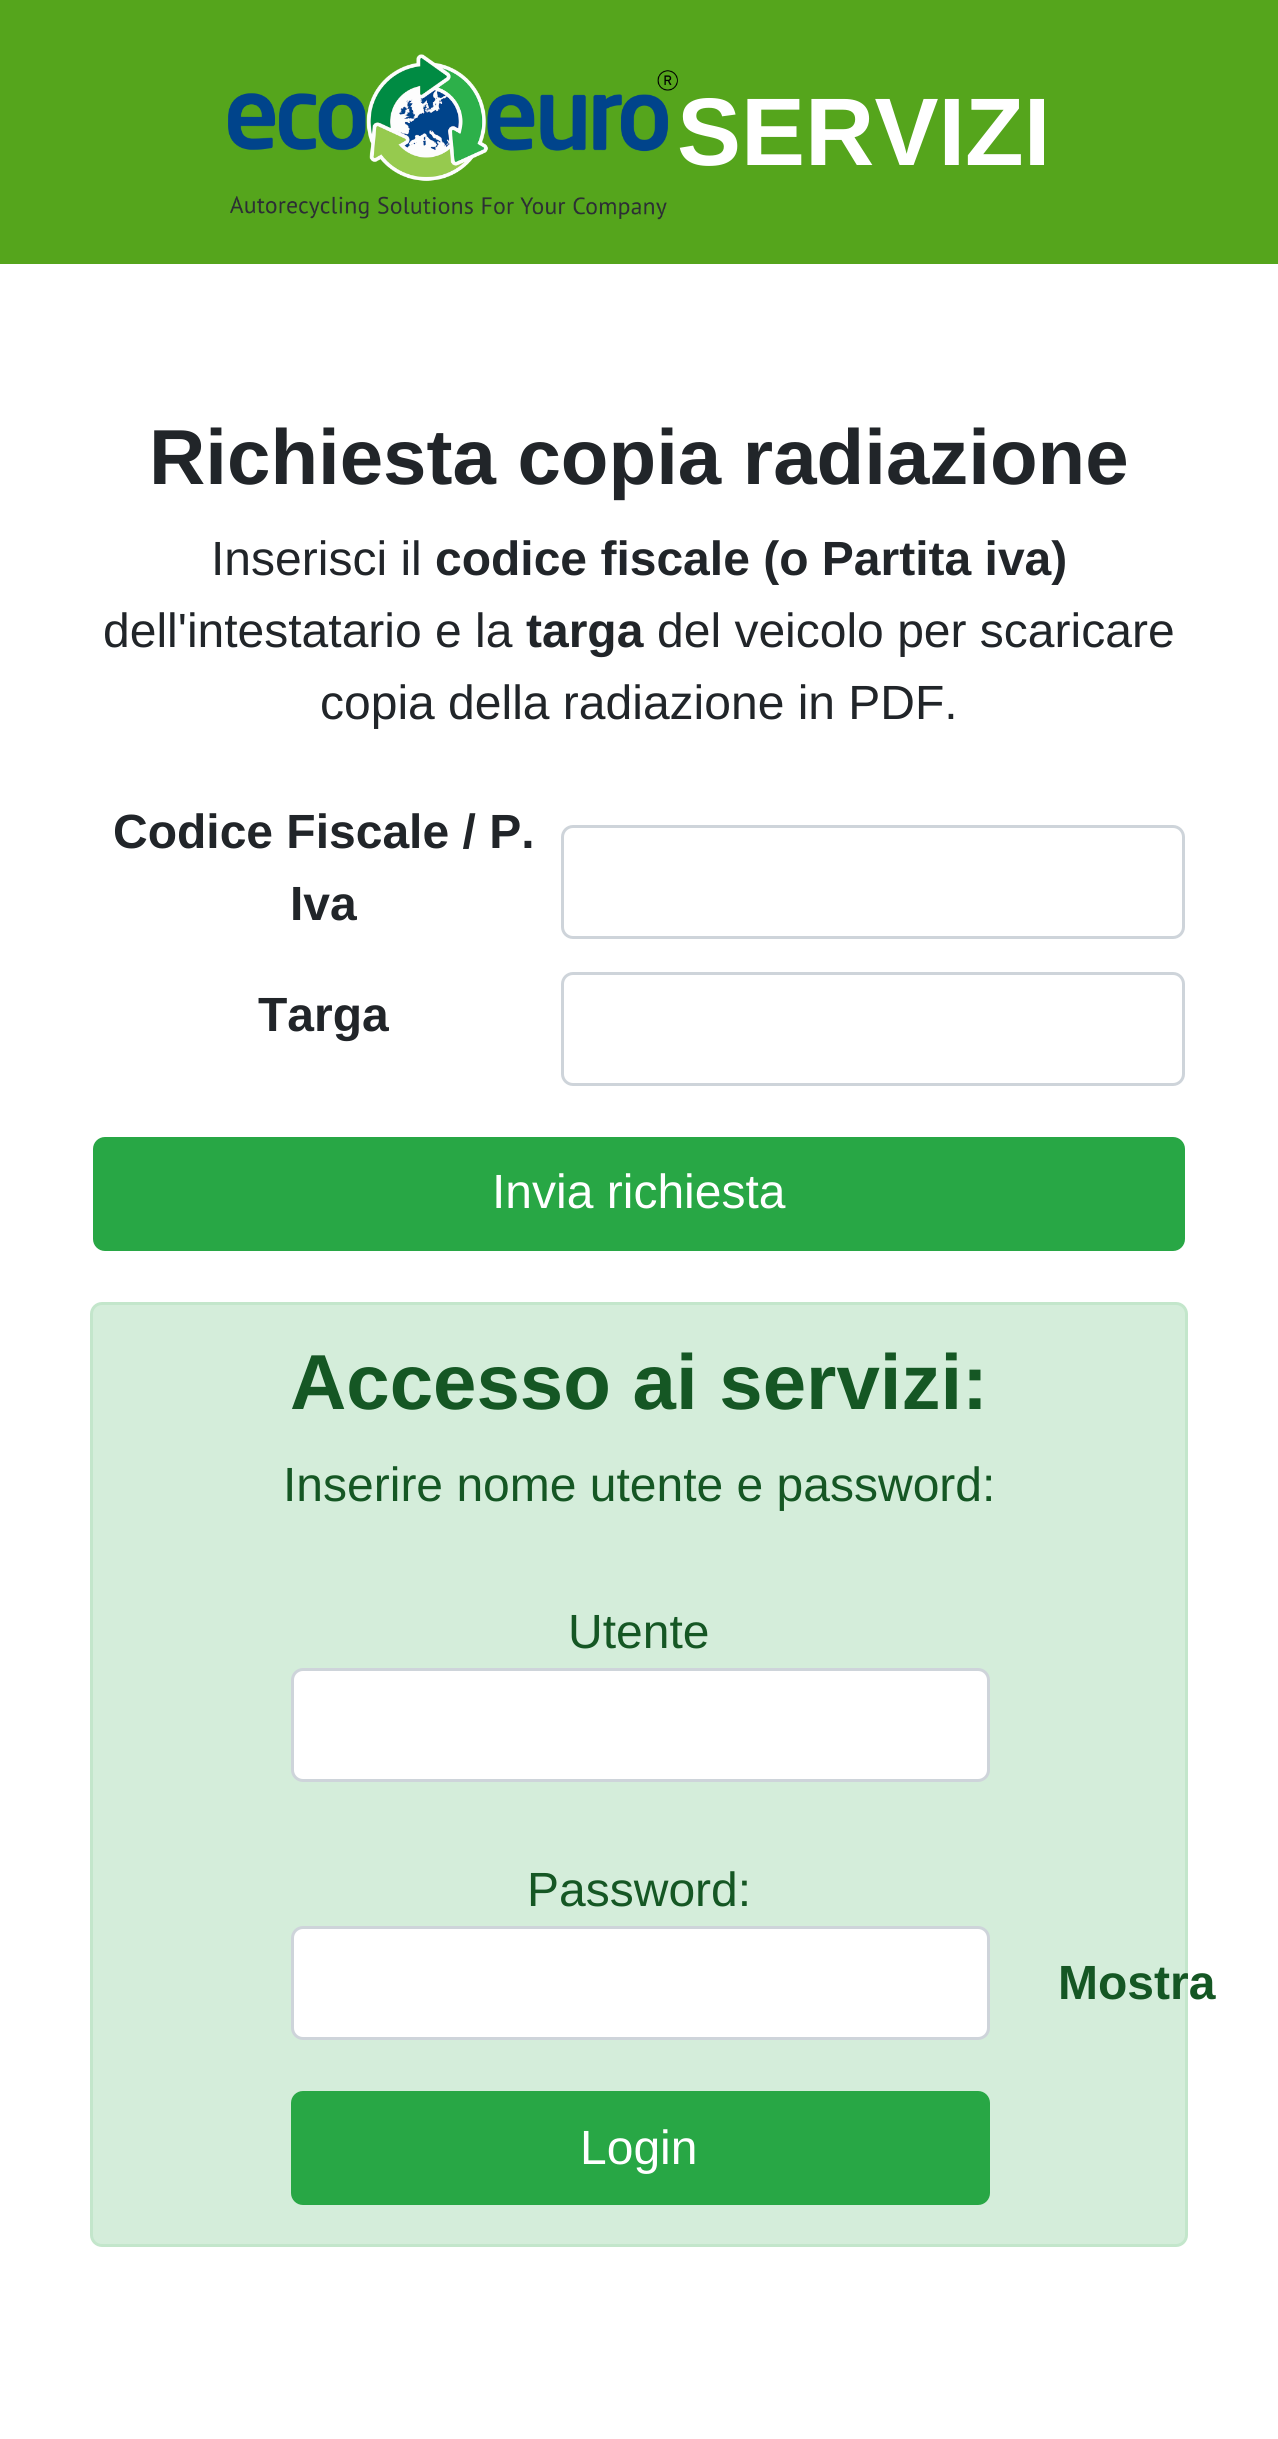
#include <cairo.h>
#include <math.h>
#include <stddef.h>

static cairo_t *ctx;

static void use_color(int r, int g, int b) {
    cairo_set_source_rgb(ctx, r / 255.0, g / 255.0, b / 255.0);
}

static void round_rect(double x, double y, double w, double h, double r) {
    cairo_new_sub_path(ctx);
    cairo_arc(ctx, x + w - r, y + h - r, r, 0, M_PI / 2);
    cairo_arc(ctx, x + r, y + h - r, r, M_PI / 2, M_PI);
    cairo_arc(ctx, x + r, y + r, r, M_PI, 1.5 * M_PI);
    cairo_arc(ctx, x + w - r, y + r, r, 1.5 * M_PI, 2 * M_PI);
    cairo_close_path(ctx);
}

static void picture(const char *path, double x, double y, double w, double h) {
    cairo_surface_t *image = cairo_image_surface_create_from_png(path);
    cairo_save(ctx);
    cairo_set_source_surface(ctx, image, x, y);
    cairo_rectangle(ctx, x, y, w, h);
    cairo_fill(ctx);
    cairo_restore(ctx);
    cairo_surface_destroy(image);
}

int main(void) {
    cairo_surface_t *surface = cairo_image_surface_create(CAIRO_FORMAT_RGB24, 1278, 2439);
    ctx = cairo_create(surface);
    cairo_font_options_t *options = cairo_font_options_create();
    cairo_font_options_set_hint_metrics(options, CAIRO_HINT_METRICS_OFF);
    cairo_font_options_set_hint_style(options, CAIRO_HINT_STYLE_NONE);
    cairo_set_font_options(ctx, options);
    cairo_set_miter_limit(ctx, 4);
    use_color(255, 255, 255);
    cairo_paint(ctx);
    use_color(85, 165, 28);
    cairo_rectangle(ctx, 0, 0, 1278, 264);
    cairo_fill(ctx);
    picture("img1.png", 228, 54, 450, 166);
    cairo_select_font_face(ctx, "Liberation Sans", CAIRO_FONT_SLANT_NORMAL, CAIRO_FONT_WEIGHT_BOLD);
    cairo_set_font_size(ctx, 96);
    use_color(255, 255, 255);
    cairo_move_to(ctx, 677, 165);
    cairo_show_text(ctx, "SERVIZI");
    cairo_set_font_size(ctx, 78);
    use_color(33, 37, 41);
    cairo_move_to(ctx, 149, 484);
    cairo_show_text(ctx, "Richiesta copia radiazione");
    cairo_select_font_face(ctx, "Liberation Sans", CAIRO_FONT_SLANT_NORMAL, CAIRO_FONT_WEIGHT_NORMAL);
    cairo_set_font_size(ctx, 48);
    cairo_move_to(ctx, 211, 575);
    cairo_show_text(ctx, "Inserisci il");
    cairo_select_font_face(ctx, "Liberation Sans", CAIRO_FONT_SLANT_NORMAL, CAIRO_FONT_WEIGHT_BOLD);
    cairo_move_to(ctx, 435, 575);
    cairo_show_text(ctx, "codice fiscale (o Partita iva)");
    cairo_select_font_face(ctx, "Liberation Sans", CAIRO_FONT_SLANT_NORMAL, CAIRO_FONT_WEIGHT_NORMAL);
    cairo_move_to(ctx, 103, 647);
    cairo_show_text(ctx, "dell'intestatario e la");
    cairo_select_font_face(ctx, "Liberation Sans", CAIRO_FONT_SLANT_NORMAL, CAIRO_FONT_WEIGHT_BOLD);
    cairo_move_to(ctx, 526, 647);
    cairo_show_text(ctx, "targa");
    cairo_select_font_face(ctx, "Liberation Sans", CAIRO_FONT_SLANT_NORMAL, CAIRO_FONT_WEIGHT_NORMAL);
    cairo_move_to(ctx, 657, 647);
    cairo_show_text(ctx, "del veicolo per scaricare");
    cairo_move_to(ctx, 320, 719);
    cairo_show_text(ctx, "copia della radiazione in PDF.");
    cairo_select_font_face(ctx, "Liberation Sans", CAIRO_FONT_SLANT_NORMAL, CAIRO_FONT_WEIGHT_BOLD);
    cairo_move_to(ctx, 113, 848);
    cairo_show_text(ctx, "Codice Fiscale / P.");
    cairo_move_to(ctx, 290, 920);
    cairo_show_text(ctx, "Iva");
    round_rect(562.5, 826.5, 621, 111, 10.5);
    use_color(206, 212, 218);
    cairo_set_line_width(ctx, 3);
    cairo_stroke(ctx);
    use_color(33, 37, 41);
    cairo_move_to(ctx, 258, 1031);
    cairo_show_text(ctx, "Targa");
    round_rect(562.5, 973.5, 621, 111, 10.5);
    use_color(206, 212, 218);
    cairo_stroke(ctx);
    use_color(40, 167, 69);
    round_rect(94.5, 1138.5, 1089, 111, 10.5);
    cairo_fill_preserve(ctx);
    cairo_stroke(ctx);
    cairo_select_font_face(ctx, "Liberation Sans", CAIRO_FONT_SLANT_NORMAL, CAIRO_FONT_WEIGHT_NORMAL);
    use_color(255, 255, 255);
    cairo_move_to(ctx, 492, 1208);
    cairo_show_text(ctx, "Invia richiesta");
    use_color(212, 237, 218);
    round_rect(91.5, 1303.5, 1095, 942, 10.5);
    cairo_fill_preserve(ctx);
    use_color(195, 230, 203);
    cairo_stroke(ctx);
    cairo_select_font_face(ctx, "Liberation Sans", CAIRO_FONT_SLANT_NORMAL, CAIRO_FONT_WEIGHT_BOLD);
    cairo_set_font_size(ctx, 78);
    use_color(21, 87, 36);
    cairo_move_to(ctx, 290, 1409);
    cairo_show_text(ctx, "Accesso ai servizi:");
    cairo_select_font_face(ctx, "Liberation Sans", CAIRO_FONT_SLANT_NORMAL, CAIRO_FONT_WEIGHT_NORMAL);
    cairo_set_font_size(ctx, 48);
    cairo_move_to(ctx, 283, 1501);
    cairo_show_text(ctx, "Inserire nome utente e password:");
    cairo_move_to(ctx, 568, 1648);
    cairo_show_text(ctx, "Utente");
    use_color(255, 255, 255);
    round_rect(292.5, 1669.5, 696, 111, 10.5);
    cairo_fill_preserve(ctx);
    use_color(206, 212, 218);
    cairo_stroke(ctx);
    use_color(21, 87, 36);
    cairo_move_to(ctx, 527, 1906);
    cairo_show_text(ctx, "Password:");
    use_color(255, 255, 255);
    round_rect(292.5, 1927.5, 696, 111, 10.5);
    cairo_fill_preserve(ctx);
    use_color(206, 212, 218);
    cairo_stroke(ctx);
    cairo_select_font_face(ctx, "Liberation Sans", CAIRO_FONT_SLANT_NORMAL, CAIRO_FONT_WEIGHT_BOLD);
    use_color(21, 87, 36);
    cairo_move_to(ctx, 1058, 1999);
    cairo_show_text(ctx, "Mostra");
    use_color(40, 167, 69);
    round_rect(292.5, 2092.5, 696, 111, 10.5);
    cairo_fill_preserve(ctx);
    cairo_stroke(ctx);
    cairo_select_font_face(ctx, "Liberation Sans", CAIRO_FONT_SLANT_NORMAL, CAIRO_FONT_WEIGHT_NORMAL);
    use_color(255, 255, 255);
    cairo_move_to(ctx, 580, 2164);
    cairo_show_text(ctx, "Login");
    cairo_surface_write_to_png(surface, "result.png");
    cairo_font_options_destroy(options);
    cairo_destroy(ctx);
    cairo_surface_destroy(surface);
    return 0;
}
